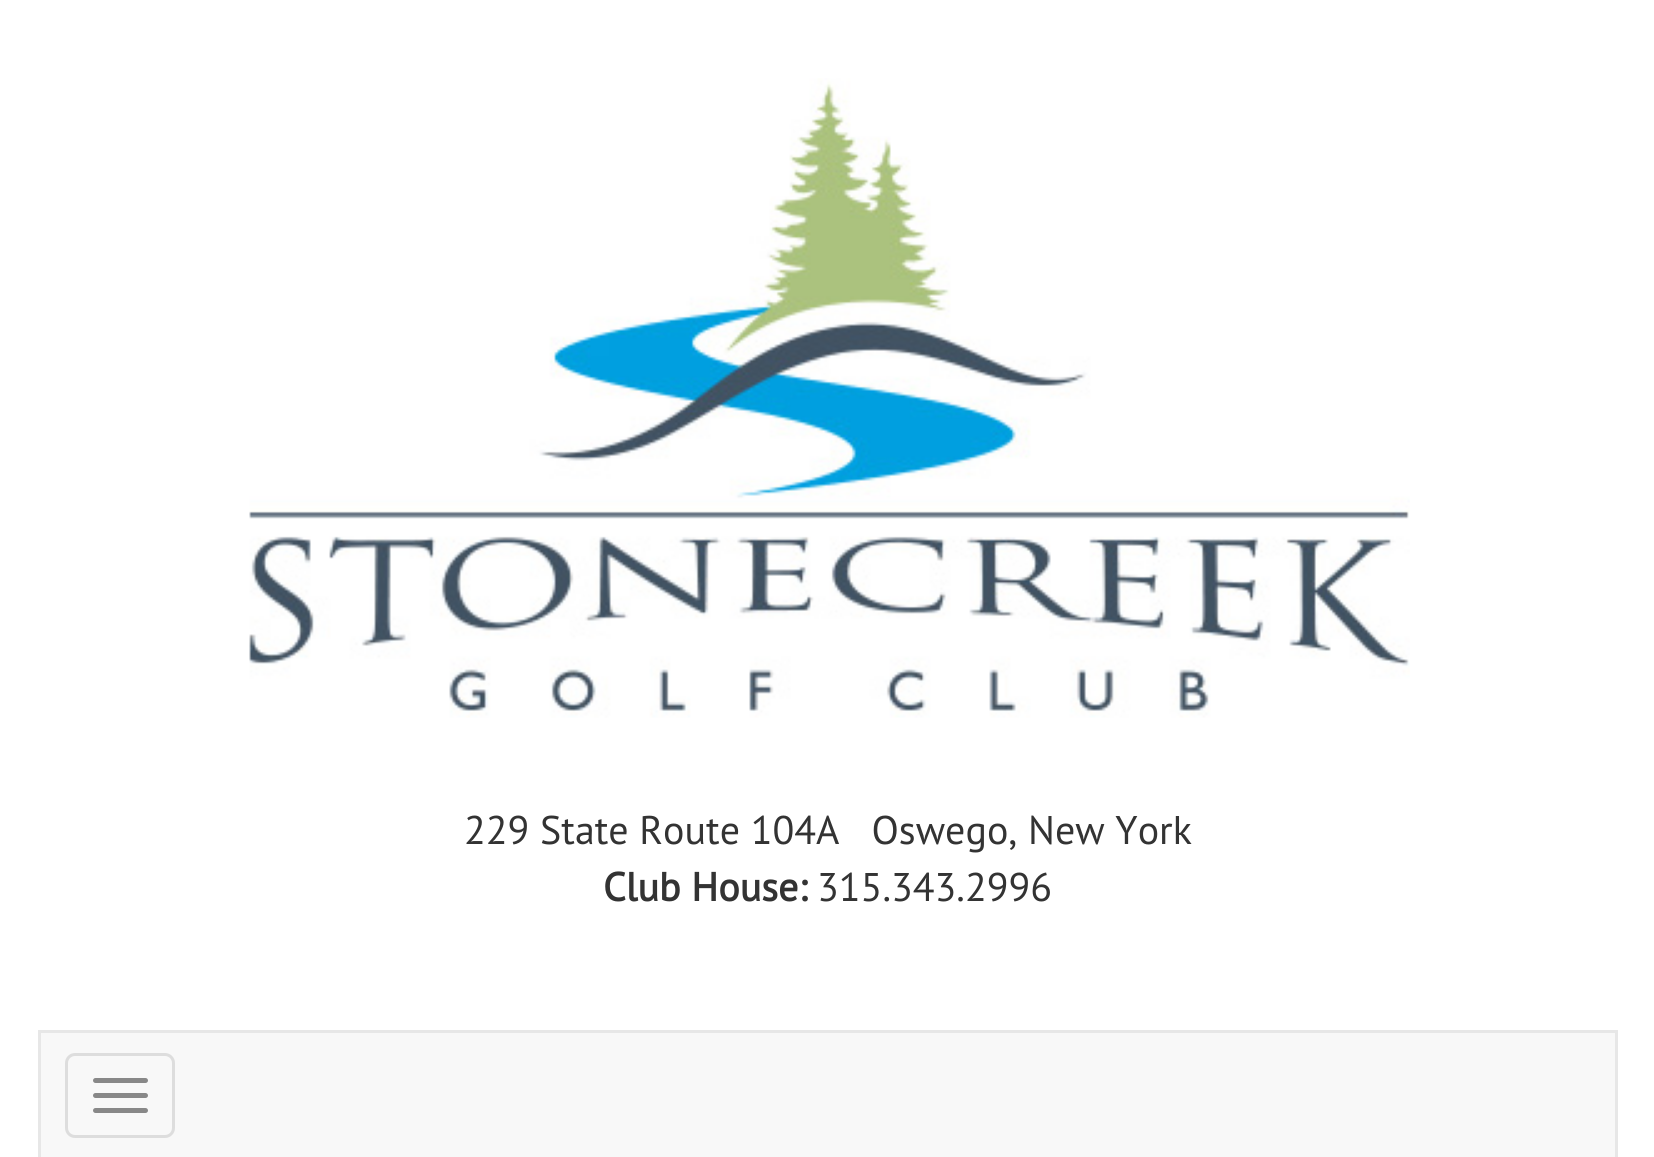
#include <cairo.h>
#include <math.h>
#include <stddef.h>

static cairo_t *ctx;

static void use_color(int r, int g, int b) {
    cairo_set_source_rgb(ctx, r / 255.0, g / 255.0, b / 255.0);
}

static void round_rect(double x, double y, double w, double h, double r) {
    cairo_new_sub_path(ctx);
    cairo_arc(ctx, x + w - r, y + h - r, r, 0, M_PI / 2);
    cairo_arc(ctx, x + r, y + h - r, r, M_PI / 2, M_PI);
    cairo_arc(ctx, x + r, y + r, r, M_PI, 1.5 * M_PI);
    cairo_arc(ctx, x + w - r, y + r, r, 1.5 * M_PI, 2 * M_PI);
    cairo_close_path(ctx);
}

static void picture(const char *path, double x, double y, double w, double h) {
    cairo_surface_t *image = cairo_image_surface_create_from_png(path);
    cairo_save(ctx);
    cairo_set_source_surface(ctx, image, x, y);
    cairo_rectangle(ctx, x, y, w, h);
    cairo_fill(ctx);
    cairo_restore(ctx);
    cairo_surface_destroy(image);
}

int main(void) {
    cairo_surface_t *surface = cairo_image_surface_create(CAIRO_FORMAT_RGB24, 1654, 1157);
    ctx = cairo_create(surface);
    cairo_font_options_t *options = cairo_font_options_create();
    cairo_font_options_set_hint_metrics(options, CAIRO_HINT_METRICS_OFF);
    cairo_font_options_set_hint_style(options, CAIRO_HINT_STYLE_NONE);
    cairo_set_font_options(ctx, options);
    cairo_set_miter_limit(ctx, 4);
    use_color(255, 255, 255);
    cairo_paint(ctx);
    picture("img1.png", 249, 78, 1161, 640);
    cairo_select_font_face(ctx, "PT Sans", CAIRO_FONT_SLANT_NORMAL, CAIRO_FONT_WEIGHT_NORMAL);
    cairo_set_font_size(ctx, 40);
    use_color(51, 51, 51);
    cairo_move_to(ctx, 464, 844);
    cairo_show_text(ctx, "229 State Route 104A   Oswego, New York");
    cairo_select_font_face(ctx, "PT Sans", CAIRO_FONT_SLANT_NORMAL, CAIRO_FONT_WEIGHT_BOLD);
    cairo_move_to(ctx, 603, 901);
    cairo_show_text(ctx, "Club House:");
    cairo_select_font_face(ctx, "PT Sans", CAIRO_FONT_SLANT_NORMAL, CAIRO_FONT_WEIGHT_NORMAL);
    cairo_move_to(ctx, 817, 901);
    cairo_show_text(ctx, "315.343.2996");
    use_color(248, 248, 248);
    cairo_rectangle(ctx, 39.5, 1031.5, 1577, 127);
    cairo_fill_preserve(ctx);
    use_color(231, 231, 231);
    cairo_set_line_width(ctx, 3);
    cairo_stroke(ctx);
    round_rect(66.5, 1054.5, 107, 82, 8.5);
    use_color(221, 221, 221);
    cairo_stroke(ctx);
    use_color(136, 136, 136);
    round_rect(93, 1078, 55, 5, 2.5);
    cairo_fill(ctx);
    round_rect(93, 1093, 55, 5, 2.5);
    cairo_fill(ctx);
    round_rect(93, 1108, 55, 5, 2.5);
    cairo_fill(ctx);
    cairo_surface_write_to_png(surface, "result.png");
    cairo_font_options_destroy(options);
    cairo_destroy(ctx);
    cairo_surface_destroy(surface);
    return 0;
}
